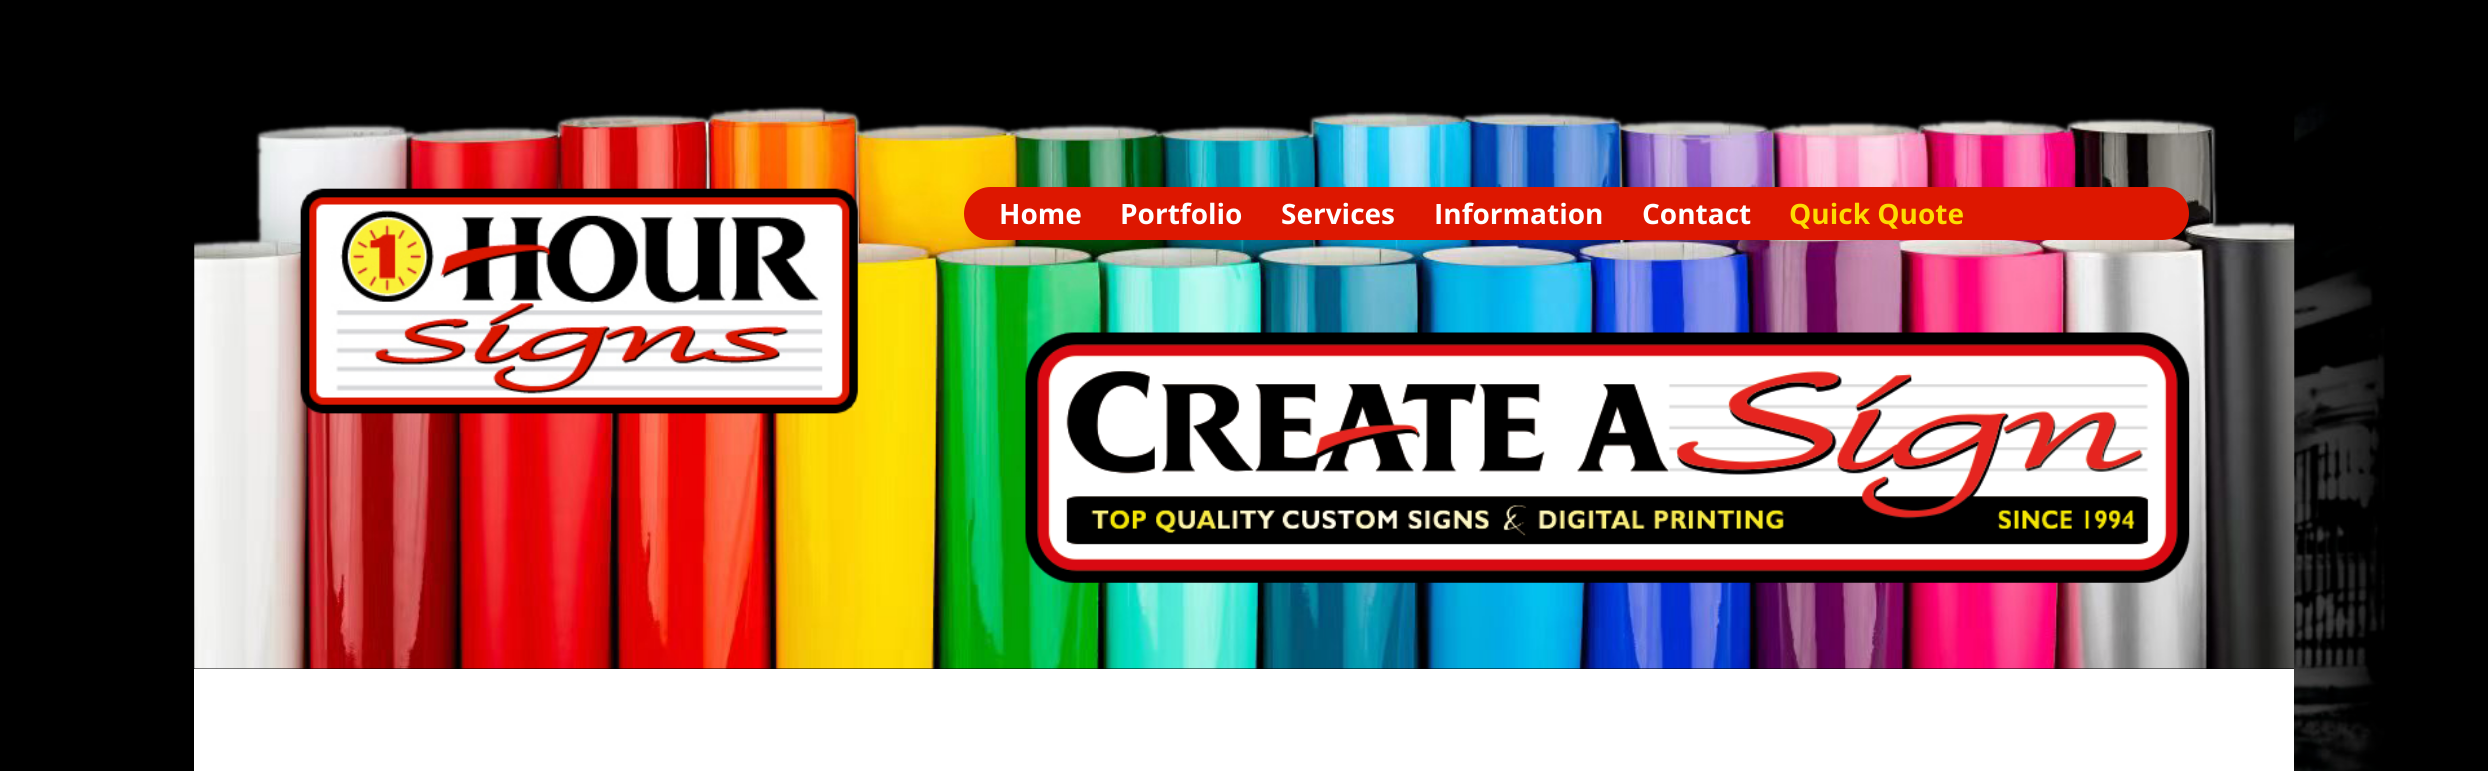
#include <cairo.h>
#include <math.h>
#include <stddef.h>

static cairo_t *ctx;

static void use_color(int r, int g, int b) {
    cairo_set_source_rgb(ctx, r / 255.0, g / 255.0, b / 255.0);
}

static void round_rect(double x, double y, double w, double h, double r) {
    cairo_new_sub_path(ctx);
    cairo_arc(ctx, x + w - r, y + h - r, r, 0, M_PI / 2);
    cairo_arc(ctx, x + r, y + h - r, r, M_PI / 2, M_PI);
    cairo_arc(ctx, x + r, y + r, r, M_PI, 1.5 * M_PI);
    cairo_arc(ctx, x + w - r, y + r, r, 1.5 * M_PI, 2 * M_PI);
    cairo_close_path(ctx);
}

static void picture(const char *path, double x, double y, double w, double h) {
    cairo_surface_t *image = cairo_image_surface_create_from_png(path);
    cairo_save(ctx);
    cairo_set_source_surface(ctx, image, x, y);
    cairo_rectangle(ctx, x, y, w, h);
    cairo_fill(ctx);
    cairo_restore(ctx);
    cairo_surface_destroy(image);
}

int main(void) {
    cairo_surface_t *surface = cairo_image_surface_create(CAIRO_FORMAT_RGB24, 2488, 771);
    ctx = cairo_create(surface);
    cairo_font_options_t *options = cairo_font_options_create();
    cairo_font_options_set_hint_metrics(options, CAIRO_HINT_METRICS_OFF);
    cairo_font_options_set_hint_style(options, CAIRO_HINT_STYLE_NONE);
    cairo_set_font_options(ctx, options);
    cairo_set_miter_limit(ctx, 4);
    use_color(0, 0, 0);
    cairo_paint(ctx);
    picture("img1.png", 2294, 0, 91, 771);
    picture("img2.png", 194, 106, 2101, 563);
    picture("img3.png", 300, 188, 559, 226);
    use_color(221, 23, 0);
    round_rect(964, 187, 1225, 53, 26.5);
    cairo_fill(ctx);
    cairo_select_font_face(ctx, "Open Sans", CAIRO_FONT_SLANT_NORMAL, CAIRO_FONT_WEIGHT_BOLD);
    cairo_set_font_size(ctx, 28);
    use_color(255, 255, 255);
    cairo_move_to(ctx, 999, 224);
    cairo_show_text(ctx, "Home");
    cairo_move_to(ctx, 1120, 224);
    cairo_show_text(ctx, "Portfolio");
    cairo_move_to(ctx, 1281, 224);
    cairo_show_text(ctx, "Services");
    cairo_move_to(ctx, 1434, 224);
    cairo_show_text(ctx, "Information");
    cairo_move_to(ctx, 1642, 224);
    cairo_show_text(ctx, "Contact");
    use_color(253, 219, 1);
    cairo_move_to(ctx, 1789, 224);
    cairo_show_text(ctx, "Quick Quote");
    picture("img4.png", 1025, 332, 1165, 251);
    use_color(255, 255, 255);
    cairo_rectangle(ctx, 194, 669, 2100, 102);
    cairo_fill(ctx);
    cairo_surface_write_to_png(surface, "result.png");
    cairo_font_options_destroy(options);
    cairo_destroy(ctx);
    cairo_surface_destroy(surface);
    return 0;
}
